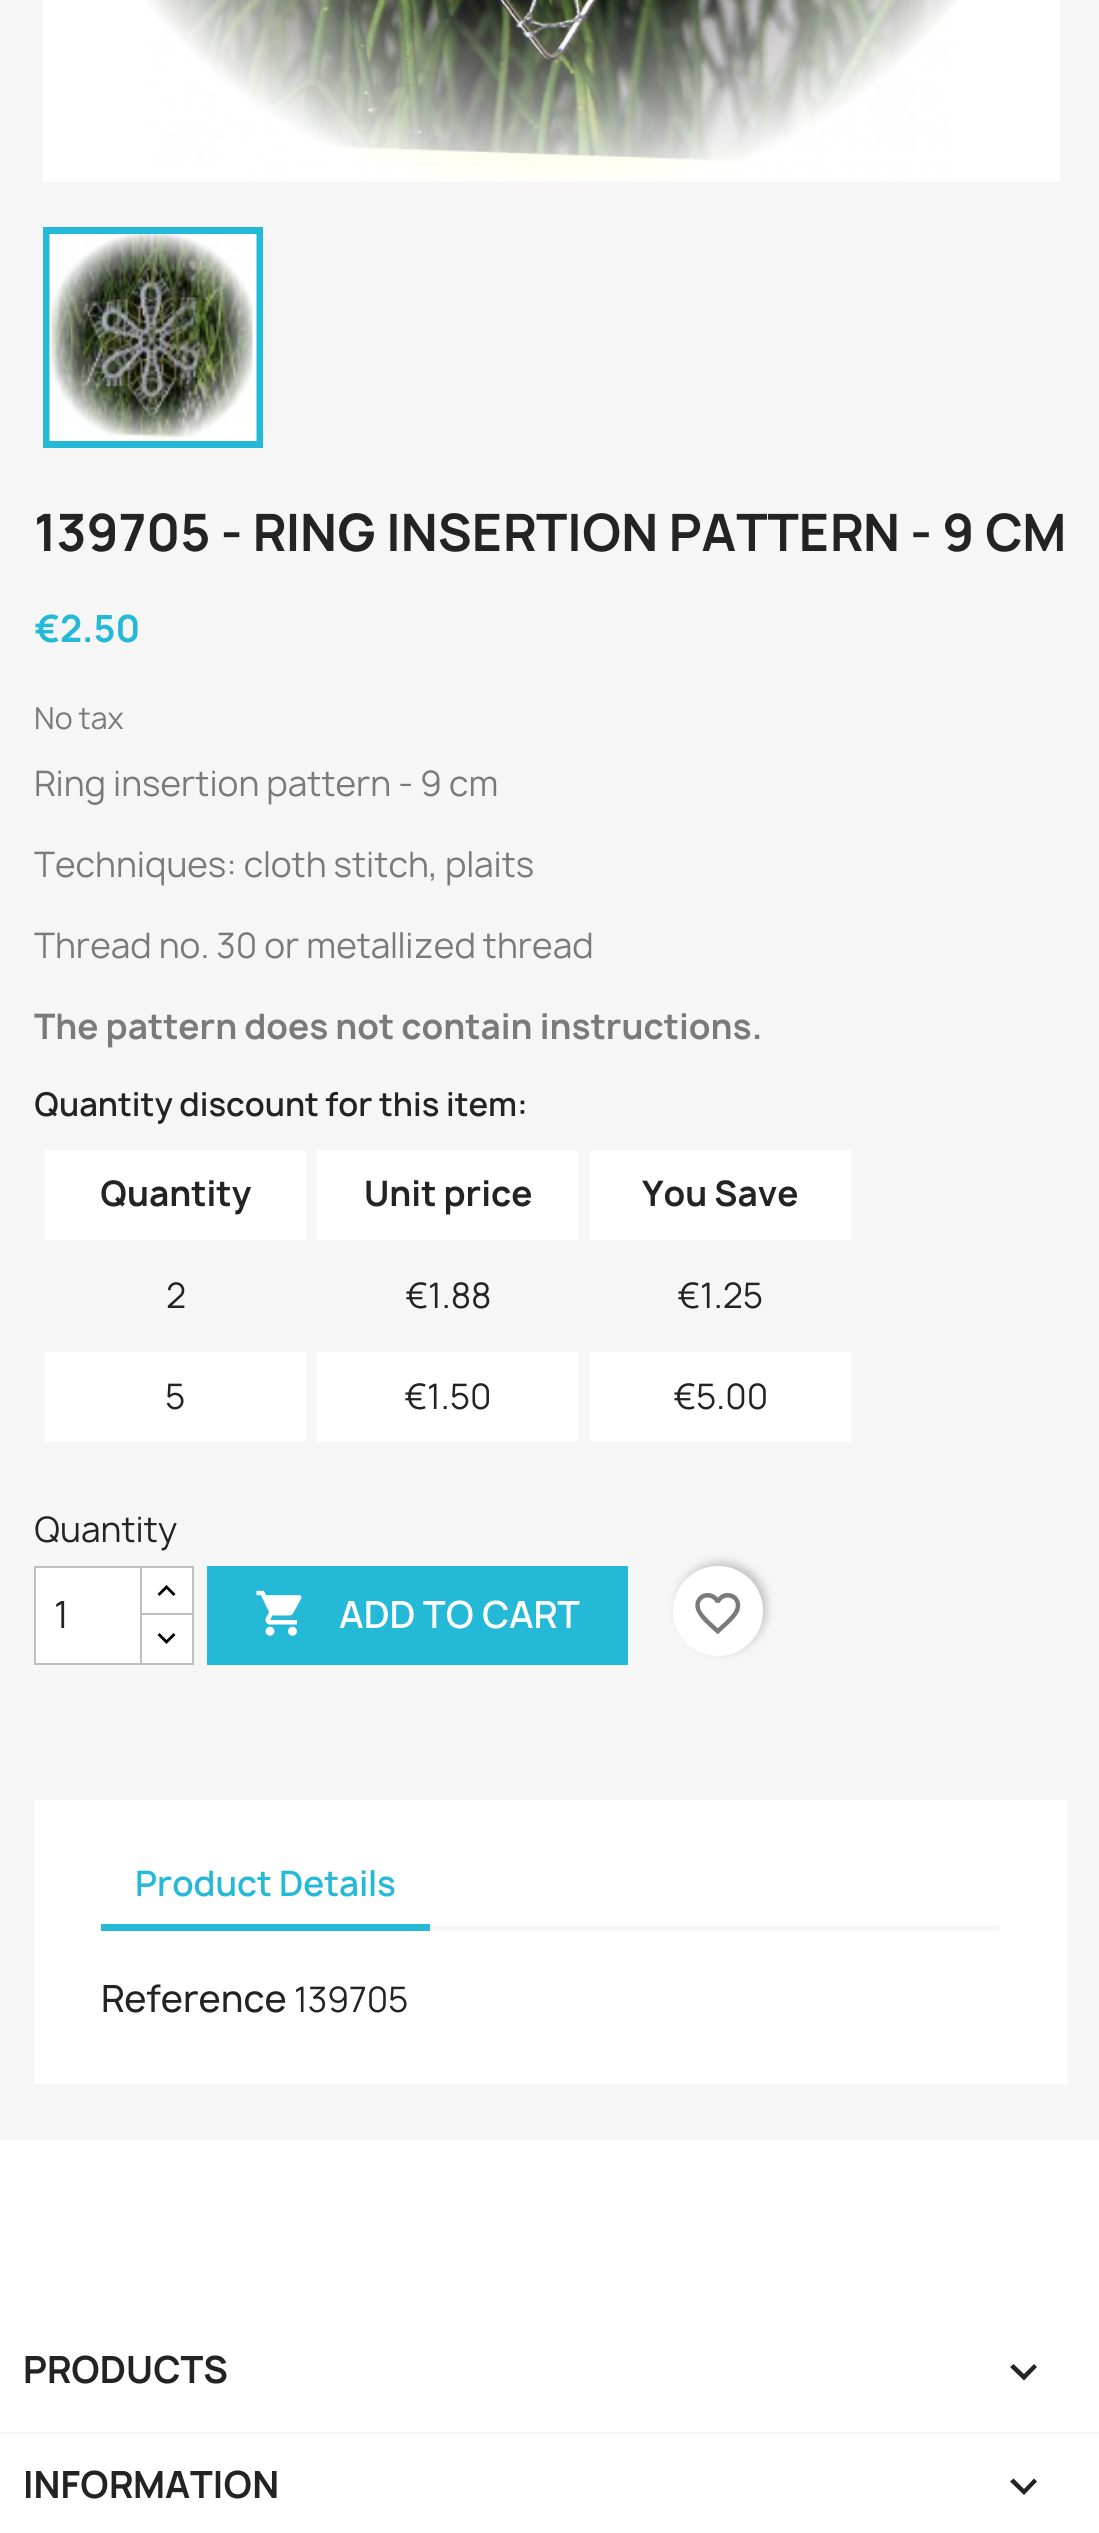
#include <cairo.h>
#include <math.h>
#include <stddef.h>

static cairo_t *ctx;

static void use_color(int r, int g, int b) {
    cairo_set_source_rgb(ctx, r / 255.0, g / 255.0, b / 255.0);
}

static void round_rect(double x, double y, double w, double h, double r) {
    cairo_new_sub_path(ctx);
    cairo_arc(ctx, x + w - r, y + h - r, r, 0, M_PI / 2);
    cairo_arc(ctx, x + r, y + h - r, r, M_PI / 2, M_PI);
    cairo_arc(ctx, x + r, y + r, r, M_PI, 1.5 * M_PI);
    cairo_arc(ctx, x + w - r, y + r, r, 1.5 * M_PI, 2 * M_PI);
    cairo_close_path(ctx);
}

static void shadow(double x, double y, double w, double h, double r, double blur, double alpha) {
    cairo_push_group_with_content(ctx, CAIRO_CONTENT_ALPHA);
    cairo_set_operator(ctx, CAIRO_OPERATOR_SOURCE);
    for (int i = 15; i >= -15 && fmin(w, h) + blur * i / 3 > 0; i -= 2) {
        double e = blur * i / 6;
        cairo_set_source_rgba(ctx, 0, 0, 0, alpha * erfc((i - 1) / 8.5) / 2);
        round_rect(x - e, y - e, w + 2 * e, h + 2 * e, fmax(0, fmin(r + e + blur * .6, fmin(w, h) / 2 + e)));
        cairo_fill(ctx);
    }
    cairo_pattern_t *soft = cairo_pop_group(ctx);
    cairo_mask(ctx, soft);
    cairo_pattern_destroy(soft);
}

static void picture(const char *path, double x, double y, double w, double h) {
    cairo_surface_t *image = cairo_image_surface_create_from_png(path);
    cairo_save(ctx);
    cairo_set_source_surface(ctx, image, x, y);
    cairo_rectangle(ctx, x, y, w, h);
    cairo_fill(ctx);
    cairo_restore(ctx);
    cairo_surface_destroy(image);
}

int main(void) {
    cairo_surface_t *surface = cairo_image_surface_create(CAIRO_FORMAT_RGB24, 1099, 2533);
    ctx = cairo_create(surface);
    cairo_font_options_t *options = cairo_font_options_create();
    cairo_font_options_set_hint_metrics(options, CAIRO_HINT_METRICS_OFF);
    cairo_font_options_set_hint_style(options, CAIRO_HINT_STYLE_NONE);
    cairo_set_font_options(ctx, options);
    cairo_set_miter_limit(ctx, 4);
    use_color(255, 255, 255);
    cairo_paint(ctx);
    use_color(246, 246, 246);
    cairo_rectangle(ctx, 0, 0, 1099, 2140);
    cairo_fill(ctx);
    use_color(255, 255, 255);
    cairo_rectangle(ctx, 43, 0, 1017, 182);
    cairo_fill(ctx);
    picture("img1.png", 147, 0, 810, 182);
    cairo_rectangle(ctx, 46.5, 230.5, 213, 214);
    use_color(36, 185, 215);
    cairo_set_line_width(ctx, 7);
    cairo_stroke(ctx);
    picture("img2.png", 49, 234, 208, 207);
    cairo_select_font_face(ctx, "Manrope", CAIRO_FONT_SLANT_NORMAL, CAIRO_FONT_WEIGHT_BOLD);
    cairo_set_font_size(ctx, 49.5);
    use_color(35, 35, 35);
    cairo_move_to(ctx, 34, 551);
    cairo_show_text(ctx, "139705 - RING INSERTION PATTERN - 9 CM");
    cairo_set_font_size(ctx, 36);
    use_color(36, 185, 215);
    cairo_move_to(ctx, 34, 642);
    cairo_show_text(ctx, "€2.50");
    cairo_select_font_face(ctx, "Manrope", CAIRO_FONT_SLANT_NORMAL, CAIRO_FONT_WEIGHT_NORMAL);
    cairo_set_font_size(ctx, 29);
    use_color(122, 122, 122);
    cairo_move_to(ctx, 34, 729);
    cairo_show_text(ctx, "No tax");
    cairo_set_font_size(ctx, 33.75);
    cairo_move_to(ctx, 34, 796);
    cairo_show_text(ctx, "Ring insertion pattern - 9 cm");
    cairo_move_to(ctx, 34, 877);
    cairo_show_text(ctx, "Techniques: cloth stitch, plaits");
    cairo_move_to(ctx, 34, 958);
    cairo_show_text(ctx, "Thread no. 30 or metallized thread");
    cairo_select_font_face(ctx, "Manrope", CAIRO_FONT_SLANT_NORMAL, CAIRO_FONT_WEIGHT_BOLD);
    cairo_move_to(ctx, 34, 1039);
    cairo_show_text(ctx, "The pattern does not contain instructions.");
    cairo_select_font_face(ctx, "Manrope SemiBold", CAIRO_FONT_SLANT_NORMAL, CAIRO_FONT_WEIGHT_NORMAL);
    cairo_set_font_size(ctx, 31.5);
    use_color(35, 35, 35);
    cairo_move_to(ctx, 34, 1116);
    cairo_show_text(ctx, "Quantity discount for this item:");
    use_color(255, 255, 255);
    cairo_rectangle(ctx, 45, 1150, 261, 90);
    cairo_fill(ctx);
    cairo_select_font_face(ctx, "Manrope", CAIRO_FONT_SLANT_NORMAL, CAIRO_FONT_WEIGHT_BOLD);
    cairo_set_font_size(ctx, 33.75);
    use_color(35, 35, 35);
    cairo_move_to(ctx, 100, 1206);
    cairo_show_text(ctx, "Quantity");
    use_color(255, 255, 255);
    cairo_rectangle(ctx, 317, 1150, 261, 90);
    cairo_fill(ctx);
    use_color(35, 35, 35);
    cairo_move_to(ctx, 364, 1206);
    cairo_show_text(ctx, "Unit price");
    use_color(255, 255, 255);
    cairo_rectangle(ctx, 590, 1150, 261, 90);
    cairo_fill(ctx);
    use_color(35, 35, 35);
    cairo_move_to(ctx, 642, 1206);
    cairo_show_text(ctx, "You Save");
    cairo_select_font_face(ctx, "Manrope", CAIRO_FONT_SLANT_NORMAL, CAIRO_FONT_WEIGHT_NORMAL);
    cairo_move_to(ctx, 166, 1308);
    cairo_show_text(ctx, "2");
    cairo_move_to(ctx, 405, 1308);
    cairo_show_text(ctx, "€1.88");
    cairo_move_to(ctx, 677, 1308);
    cairo_show_text(ctx, "€1.25");
    use_color(255, 255, 255);
    cairo_rectangle(ctx, 45, 1352, 806, 90);
    cairo_fill(ctx);
    use_color(35, 35, 35);
    cairo_move_to(ctx, 165, 1409);
    cairo_show_text(ctx, "5");
    use_color(246, 246, 246);
    cairo_rectangle(ctx, 306, 1352, 11, 90);
    cairo_fill(ctx);
    use_color(35, 35, 35);
    cairo_move_to(ctx, 404, 1409);
    cairo_show_text(ctx, "€1.50");
    use_color(246, 246, 246);
    cairo_rectangle(ctx, 578, 1352, 12, 90);
    cairo_fill(ctx);
    use_color(35, 35, 35);
    cairo_move_to(ctx, 673, 1409);
    cairo_show_text(ctx, "€5.00");
    cairo_move_to(ctx, 34, 1542);
    cairo_show_text(ctx, "Quantity");
    use_color(255, 255, 255);
    cairo_rectangle(ctx, 142, 1568, 50, 45);
    cairo_fill(ctx);
    cairo_rectangle(ctx, 141, 1567, 52, 50);
    use_color(191, 191, 191);
    cairo_set_line_width(ctx, 2);
    cairo_stroke(ctx);
    use_color(255, 255, 255);
    cairo_rectangle(ctx, 141, 1614, 52, 50);
    cairo_fill_preserve(ctx);
    use_color(191, 191, 191);
    cairo_stroke(ctx);
    use_color(255, 255, 255);
    cairo_rectangle(ctx, 35, 1567, 106, 97);
    cairo_fill_preserve(ctx);
    use_color(191, 191, 191);
    cairo_stroke(ctx);
    cairo_set_font_size(ctx, 36);
    use_color(35, 35, 35);
    cairo_move_to(ctx, 54, 1628);
    cairo_show_text(ctx, "1");
    use_color(0, 0, 0);
    cairo_new_path(ctx);
    cairo_move_to(ctx, 166.5, 1585);
    cairo_line_to(ctx, 175.5, 1594);
    cairo_line_to(ctx, 173.5, 1596);
    cairo_line_to(ctx, 166.5, 1589);
    cairo_line_to(ctx, 159.5, 1596);
    cairo_line_to(ctx, 157.5, 1594);
    cairo_close_path(ctx);
    cairo_fill(ctx);
    cairo_new_path(ctx);
    cairo_move_to(ctx, 173.5, 1633);
    cairo_line_to(ctx, 175.5, 1635);
    cairo_line_to(ctx, 166.5, 1644);
    cairo_line_to(ctx, 157.5, 1635);
    cairo_line_to(ctx, 159.5, 1633);
    cairo_line_to(ctx, 166.5, 1640);
    cairo_close_path(ctx);
    cairo_fill(ctx);
    use_color(36, 185, 215);
    cairo_rectangle(ctx, 207, 1566, 421, 99);
    cairo_fill(ctx);
    picture("img3.png", 256, 1590, 46, 46);
    cairo_select_font_face(ctx, "Manrope SemiBold", CAIRO_FONT_SLANT_NORMAL, CAIRO_FONT_WEIGHT_NORMAL);
    use_color(255, 255, 255);
    cairo_move_to(ctx, 339, 1628);
    cairo_show_text(ctx, "ADD TO CART");
    use_color(0, 0, 0);
    shadow(677, 1562, 90, 90, 45, 4.5, 0.2);
    use_color(255, 255, 255);
    cairo_arc(ctx, 718, 1611, 45, 0, 2 * M_PI);
    cairo_fill(ctx);
    picture("img4.png", 695, 1593, 46, 42);
    cairo_rectangle(ctx, 34, 1800, 1033, 284);
    cairo_fill(ctx);
    use_color(246, 246, 246);
    cairo_rectangle(ctx, 430, 1926, 569, 5);
    cairo_fill(ctx);
    use_color(36, 185, 215);
    cairo_rectangle(ctx, 101, 1924, 329, 7);
    cairo_fill(ctx);
    cairo_set_font_size(ctx, 33.75);
    cairo_move_to(ctx, 135, 1896);
    cairo_show_text(ctx, "Product Details");
    cairo_select_font_face(ctx, "Manrope Medium", CAIRO_FONT_SLANT_NORMAL, CAIRO_FONT_WEIGHT_NORMAL);
    cairo_set_font_size(ctx, 36);
    use_color(35, 35, 35);
    cairo_move_to(ctx, 101, 2012);
    cairo_show_text(ctx, "Reference");
    cairo_select_font_face(ctx, "Manrope", CAIRO_FONT_SLANT_NORMAL, CAIRO_FONT_WEIGHT_NORMAL);
    cairo_set_font_size(ctx, 33.75);
    cairo_move_to(ctx, 294, 2012);
    cairo_show_text(ctx, "139705");
    use_color(246, 246, 246);
    cairo_rectangle(ctx, 0, 2432, 1099, 2);
    cairo_fill(ctx);
    cairo_select_font_face(ctx, "Manrope", CAIRO_FONT_SLANT_NORMAL, CAIRO_FONT_WEIGHT_BOLD);
    cairo_set_font_size(ctx, 36);
    use_color(35, 35, 35);
    cairo_move_to(ctx, 23, 2383);
    cairo_show_text(ctx, "PRODUCTS");
    cairo_new_path(ctx);
    cairo_move_to(ctx, 1013.5, 2364);
    cairo_line_to(ctx, 1024, 2374);
    cairo_line_to(ctx, 1034, 2364);
    cairo_line_to(ctx, 1037, 2367);
    cairo_line_to(ctx, 1024, 2380.5);
    cairo_line_to(ctx, 1010, 2367);
    cairo_close_path(ctx);
    cairo_fill(ctx);
    cairo_move_to(ctx, 23, 2498);
    cairo_show_text(ctx, "INFORMATION");
    cairo_new_path(ctx);
    cairo_move_to(ctx, 1013.5, 2478.5);
    cairo_line_to(ctx, 1024, 2489);
    cairo_line_to(ctx, 1034, 2478.5);
    cairo_line_to(ctx, 1037, 2481.5);
    cairo_line_to(ctx, 1024, 2495);
    cairo_line_to(ctx, 1010, 2481.5);
    cairo_close_path(ctx);
    cairo_fill(ctx);
    cairo_surface_write_to_png(surface, "result.png");
    cairo_font_options_destroy(options);
    cairo_destroy(ctx);
    cairo_surface_destroy(surface);
    return 0;
}
